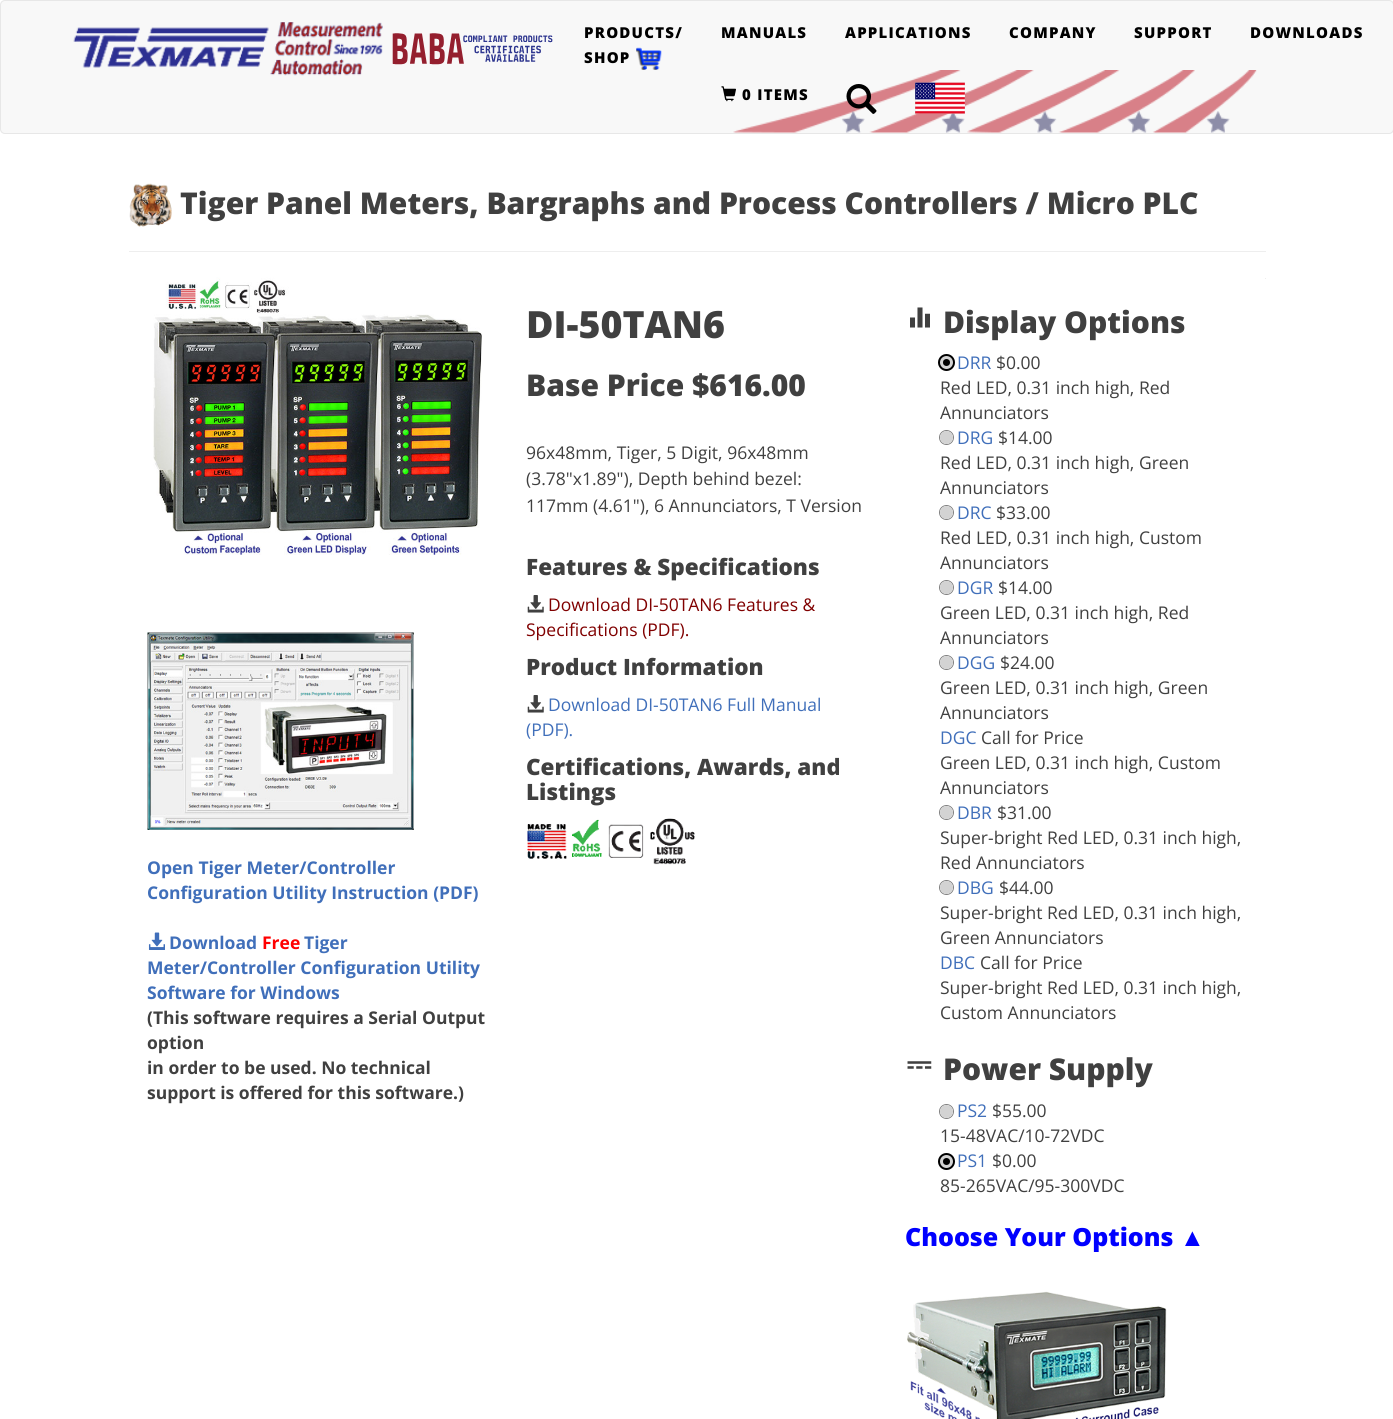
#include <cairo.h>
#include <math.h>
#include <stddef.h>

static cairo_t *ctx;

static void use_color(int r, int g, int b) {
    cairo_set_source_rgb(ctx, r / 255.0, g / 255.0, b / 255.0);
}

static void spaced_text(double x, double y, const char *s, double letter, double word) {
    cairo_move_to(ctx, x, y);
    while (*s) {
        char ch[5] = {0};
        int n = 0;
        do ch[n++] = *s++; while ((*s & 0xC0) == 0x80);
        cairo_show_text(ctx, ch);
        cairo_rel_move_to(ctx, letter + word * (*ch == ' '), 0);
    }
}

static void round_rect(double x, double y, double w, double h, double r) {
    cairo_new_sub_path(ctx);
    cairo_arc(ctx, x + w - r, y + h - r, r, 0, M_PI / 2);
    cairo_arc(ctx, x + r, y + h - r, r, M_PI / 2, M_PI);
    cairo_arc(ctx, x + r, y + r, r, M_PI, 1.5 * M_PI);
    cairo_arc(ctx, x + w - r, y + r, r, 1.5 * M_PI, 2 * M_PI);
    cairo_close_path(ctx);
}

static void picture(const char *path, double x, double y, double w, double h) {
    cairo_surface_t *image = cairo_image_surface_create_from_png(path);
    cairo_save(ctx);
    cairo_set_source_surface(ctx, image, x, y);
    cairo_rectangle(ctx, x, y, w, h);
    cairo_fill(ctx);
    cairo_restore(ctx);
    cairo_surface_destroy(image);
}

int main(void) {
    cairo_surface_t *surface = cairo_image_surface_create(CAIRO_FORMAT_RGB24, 1393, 1419);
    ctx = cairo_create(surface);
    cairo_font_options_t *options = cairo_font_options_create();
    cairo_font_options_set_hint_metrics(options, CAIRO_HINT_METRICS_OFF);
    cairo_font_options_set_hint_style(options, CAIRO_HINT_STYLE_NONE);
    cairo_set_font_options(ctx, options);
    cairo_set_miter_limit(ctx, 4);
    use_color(255, 255, 255);
    cairo_paint(ctx);
    use_color(248, 248, 248);
    round_rect(0, 0, 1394, 134, 5);
    cairo_fill(ctx);
    picture("img1.png", 733, 70, 524, 63);
    round_rect(0.5, 0.5, 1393, 133, 4.5);
    use_color(231, 231, 231);
    cairo_set_line_width(ctx, 1);
    cairo_stroke(ctx);
    picture("img2.png", 73, 22, 310, 54);
    picture("img3.png", 392, 33, 161, 32);
    cairo_select_font_face(ctx, "Open Sans ExtraBold", CAIRO_FONT_SLANT_NORMAL, CAIRO_FONT_WEIGHT_NORMAL);
    cairo_set_font_size(ctx, 15);
    use_color(0, 0, 0);
    spaced_text(584, 38, "PRODUCTS/", 1.25, 0);
    spaced_text(584, 63, "SHOP", 1.25, 0);
    picture("img4.png", 636, 47, 26, 23);
    spaced_text(721, 38, "MANUALS", 1.25, 0);
    spaced_text(845, 38, "APPLICATIONS", 1.25, 0);
    spaced_text(1009, 38, "COMPANY", 1.25, 0);
    spaced_text(1134, 38, "SUPPORT", 1.25, 0);
    spaced_text(1250, 38, "DOWNLOADS", 1.25, 0);
    picture("img5.png", 721, 86, 15, 16);
    spaced_text(742, 100, "0 ITEMS", 1.25, 0);
    picture("img6.png", 846, 84, 31, 30);
    picture("img7.png", 915, 82, 50, 32);
    use_color(238, 238, 238);
    cairo_rectangle(ctx, 129, 251, 1137, 1);
    cairo_fill(ctx);
    picture("img8.png", 129, 183, 43, 44);
    cairo_set_font_size(ctx, 30);
    use_color(64, 64, 64);
    cairo_move_to(ctx, 180, 214);
    cairo_show_text(ctx, "Tiger Panel Meters, Bargraphs and Process Controllers / Micro PLC");
    cairo_set_font_size(ctx, 37.5);
    cairo_move_to(ctx, 526, 338);
    cairo_show_text(ctx, "DI-50TAN6");
    cairo_set_font_size(ctx, 30);
    cairo_move_to(ctx, 526, 396);
    cairo_show_text(ctx, "Base Price $616.00");
    cairo_select_font_face(ctx, "Open Sans", CAIRO_FONT_SLANT_NORMAL, CAIRO_FONT_WEIGHT_NORMAL);
    cairo_set_font_size(ctx, 17.5);
    cairo_move_to(ctx, 526, 459);
    cairo_show_text(ctx, "96x48mm, Tiger, 5 Digit, 96x48mm");
    cairo_move_to(ctx, 526, 485);
    cairo_show_text(ctx, "(3.78\"x1.89\"), Depth behind bezel:");
    cairo_move_to(ctx, 526, 512);
    cairo_show_text(ctx, "117mm (4.61\"), 6 Annunciators, T Version");
    cairo_select_font_face(ctx, "Open Sans ExtraBold", CAIRO_FONT_SLANT_NORMAL, CAIRO_FONT_WEIGHT_NORMAL);
    cairo_set_font_size(ctx, 22.5);
    cairo_move_to(ctx, 526, 575);
    cairo_show_text(ctx, "Features & Specifications");
    picture("img9.png", 527, 595, 17, 18);
    cairo_select_font_face(ctx, "Open Sans", CAIRO_FONT_SLANT_NORMAL, CAIRO_FONT_WEIGHT_NORMAL);
    cairo_set_font_size(ctx, 17.5);
    use_color(128, 0, 0);
    cairo_move_to(ctx, 548, 611);
    cairo_show_text(ctx, "Download DI-50TAN6 Features &");
    cairo_move_to(ctx, 526, 636);
    cairo_show_text(ctx, "Specifications (PDF).");
    cairo_select_font_face(ctx, "Open Sans ExtraBold", CAIRO_FONT_SLANT_NORMAL, CAIRO_FONT_WEIGHT_NORMAL);
    cairo_set_font_size(ctx, 22.5);
    use_color(64, 64, 64);
    cairo_move_to(ctx, 526, 675);
    cairo_show_text(ctx, "Product Information");
    picture("img9.png", 527, 695, 17, 18);
    cairo_select_font_face(ctx, "Open Sans", CAIRO_FONT_SLANT_NORMAL, CAIRO_FONT_WEIGHT_NORMAL);
    cairo_set_font_size(ctx, 17.5);
    use_color(64, 111, 186);
    cairo_move_to(ctx, 548, 711);
    cairo_show_text(ctx, "Download DI-50TAN6 Full Manual");
    cairo_move_to(ctx, 526, 736);
    cairo_show_text(ctx, "(PDF).");
    cairo_select_font_face(ctx, "Open Sans ExtraBold", CAIRO_FONT_SLANT_NORMAL, CAIRO_FONT_WEIGHT_NORMAL);
    cairo_set_font_size(ctx, 22.5);
    use_color(64, 64, 64);
    cairo_move_to(ctx, 526, 775);
    cairo_show_text(ctx, "Certifications, Awards, and");
    cairo_move_to(ctx, 526, 800);
    cairo_show_text(ctx, "Listings");
    picture("img10.png", 527, 818, 168, 47);
    use_color(238, 238, 238);
    cairo_rectangle(ctx, 1265, 278, 1, 1);
    cairo_fill(ctx);
    picture("img11.png", 910, 307, 20, 21);
    cairo_set_font_size(ctx, 30);
    use_color(64, 64, 64);
    cairo_move_to(ctx, 943, 333);
    cairo_show_text(ctx, "Display Options");
    cairo_new_path(ctx);
    cairo_arc(ctx, 946.5, 362.5, 7, 0, 2 * M_PI);
    use_color(0, 0, 0);
    cairo_set_line_width(ctx, 3);
    cairo_stroke(ctx);
    use_color(211, 211, 211);
    cairo_arc(ctx, 946.5, 362.5, 6.5, 0, 2 * M_PI);
    cairo_fill(ctx);
    use_color(0, 0, 0);
    cairo_arc(ctx, 946.5, 362.5, 3.5, 0, 2 * M_PI);
    cairo_fill(ctx);
    cairo_select_font_face(ctx, "Open Sans", CAIRO_FONT_SLANT_NORMAL, CAIRO_FONT_WEIGHT_NORMAL);
    cairo_set_font_size(ctx, 17.5);
    use_color(64, 111, 186);
    cairo_move_to(ctx, 957, 369);
    cairo_show_text(ctx, "DRR");
    use_color(64, 64, 64);
    cairo_move_to(ctx, 996, 369);
    cairo_show_text(ctx, "$0.00");
    cairo_move_to(ctx, 940, 394);
    cairo_show_text(ctx, "Red LED, 0.31 inch high, Red");
    cairo_move_to(ctx, 940, 419);
    cairo_show_text(ctx, "Annunciators");
    cairo_new_path(ctx);
    cairo_arc(ctx, 946.5, 437.5, 7, 0, 2 * M_PI);
    use_color(128, 128, 128);
    cairo_set_line_width(ctx, 1);
    cairo_stroke(ctx);
    use_color(211, 211, 211);
    cairo_arc(ctx, 946.5, 437.5, 6.5, 0, 2 * M_PI);
    cairo_fill(ctx);
    use_color(64, 111, 186);
    cairo_move_to(ctx, 957, 444);
    cairo_show_text(ctx, "DRG");
    use_color(64, 64, 64);
    cairo_move_to(ctx, 998, 444);
    cairo_show_text(ctx, "$14.00");
    cairo_move_to(ctx, 940, 469);
    cairo_show_text(ctx, "Red LED, 0.31 inch high, Green");
    cairo_move_to(ctx, 940, 494);
    cairo_show_text(ctx, "Annunciators");
    cairo_new_path(ctx);
    cairo_arc(ctx, 946.5, 512.5, 7, 0, 2 * M_PI);
    use_color(128, 128, 128);
    cairo_stroke(ctx);
    use_color(211, 211, 211);
    cairo_arc(ctx, 946.5, 512.5, 6.5, 0, 2 * M_PI);
    cairo_fill(ctx);
    use_color(64, 111, 186);
    cairo_move_to(ctx, 957, 519);
    cairo_show_text(ctx, "DRC");
    use_color(64, 64, 64);
    cairo_move_to(ctx, 996, 519);
    cairo_show_text(ctx, "$33.00");
    cairo_move_to(ctx, 940, 544);
    cairo_show_text(ctx, "Red LED, 0.31 inch high, Custom");
    cairo_move_to(ctx, 940, 569);
    cairo_show_text(ctx, "Annunciators");
    cairo_new_path(ctx);
    cairo_arc(ctx, 946.5, 587.5, 7, 0, 2 * M_PI);
    use_color(128, 128, 128);
    cairo_stroke(ctx);
    use_color(211, 211, 211);
    cairo_arc(ctx, 946.5, 587.5, 6.5, 0, 2 * M_PI);
    cairo_fill(ctx);
    use_color(64, 111, 186);
    cairo_move_to(ctx, 957, 594);
    cairo_show_text(ctx, "DGR");
    use_color(64, 64, 64);
    cairo_move_to(ctx, 998, 594);
    cairo_show_text(ctx, "$14.00");
    cairo_move_to(ctx, 940, 619);
    cairo_show_text(ctx, "Green LED, 0.31 inch high, Red");
    cairo_move_to(ctx, 940, 644);
    cairo_show_text(ctx, "Annunciators");
    cairo_new_path(ctx);
    cairo_arc(ctx, 946.5, 662.5, 7, 0, 2 * M_PI);
    use_color(128, 128, 128);
    cairo_stroke(ctx);
    use_color(211, 211, 211);
    cairo_arc(ctx, 946.5, 662.5, 6.5, 0, 2 * M_PI);
    cairo_fill(ctx);
    use_color(64, 111, 186);
    cairo_move_to(ctx, 957, 669);
    cairo_show_text(ctx, "DGG");
    use_color(64, 64, 64);
    cairo_move_to(ctx, 1000, 669);
    cairo_show_text(ctx, "$24.00");
    cairo_move_to(ctx, 940, 694);
    cairo_show_text(ctx, "Green LED, 0.31 inch high, Green");
    cairo_move_to(ctx, 940, 719);
    cairo_show_text(ctx, "Annunciators");
    use_color(64, 111, 186);
    cairo_move_to(ctx, 940, 744);
    cairo_show_text(ctx, "DGC");
    use_color(64, 64, 64);
    cairo_move_to(ctx, 981, 744);
    cairo_show_text(ctx, "Call for Price");
    cairo_move_to(ctx, 940, 769);
    cairo_show_text(ctx, "Green LED, 0.31 inch high, Custom");
    cairo_move_to(ctx, 940, 794);
    cairo_show_text(ctx, "Annunciators");
    cairo_new_path(ctx);
    cairo_arc(ctx, 946.5, 812.5, 7, 0, 2 * M_PI);
    use_color(128, 128, 128);
    cairo_stroke(ctx);
    use_color(211, 211, 211);
    cairo_arc(ctx, 946.5, 812.5, 6.5, 0, 2 * M_PI);
    cairo_fill(ctx);
    use_color(64, 111, 186);
    cairo_move_to(ctx, 957, 819);
    cairo_show_text(ctx, "DBR");
    use_color(64, 64, 64);
    cairo_move_to(ctx, 997, 819);
    cairo_show_text(ctx, "$31.00");
    cairo_move_to(ctx, 940, 844);
    cairo_show_text(ctx, "Super-bright Red LED, 0.31 inch high,");
    cairo_move_to(ctx, 940, 869);
    cairo_show_text(ctx, "Red Annunciators");
    cairo_new_path(ctx);
    cairo_arc(ctx, 946.5, 887.5, 7, 0, 2 * M_PI);
    use_color(128, 128, 128);
    cairo_stroke(ctx);
    use_color(211, 211, 211);
    cairo_arc(ctx, 946.5, 887.5, 6.5, 0, 2 * M_PI);
    cairo_fill(ctx);
    use_color(64, 111, 186);
    cairo_move_to(ctx, 957, 894);
    cairo_show_text(ctx, "DBG");
    use_color(64, 64, 64);
    cairo_move_to(ctx, 999, 894);
    cairo_show_text(ctx, "$44.00");
    cairo_move_to(ctx, 940, 919);
    cairo_show_text(ctx, "Super-bright Red LED, 0.31 inch high,");
    cairo_move_to(ctx, 940, 944);
    cairo_show_text(ctx, "Green Annunciators");
    use_color(64, 111, 186);
    cairo_move_to(ctx, 940, 969);
    cairo_show_text(ctx, "DBC");
    use_color(64, 64, 64);
    cairo_move_to(ctx, 980, 969);
    cairo_show_text(ctx, "Call for Price");
    cairo_move_to(ctx, 940, 994);
    cairo_show_text(ctx, "Super-bright Red LED, 0.31 inch high,");
    cairo_move_to(ctx, 940, 1019);
    cairo_show_text(ctx, "Custom Annunciators");
    picture("img12.png", 907, 1061, 25, 8);
    cairo_select_font_face(ctx, "Open Sans ExtraBold", CAIRO_FONT_SLANT_NORMAL, CAIRO_FONT_WEIGHT_NORMAL);
    cairo_set_font_size(ctx, 30);
    cairo_move_to(ctx, 943, 1080);
    cairo_show_text(ctx, "Power Supply");
    cairo_new_path(ctx);
    cairo_arc(ctx, 946.5, 1111.5, 7, 0, 2 * M_PI);
    use_color(128, 128, 128);
    cairo_stroke(ctx);
    use_color(211, 211, 211);
    cairo_arc(ctx, 946.5, 1111.5, 6.5, 0, 2 * M_PI);
    cairo_fill(ctx);
    cairo_select_font_face(ctx, "Open Sans", CAIRO_FONT_SLANT_NORMAL, CAIRO_FONT_WEIGHT_NORMAL);
    cairo_set_font_size(ctx, 17.5);
    use_color(64, 111, 186);
    cairo_move_to(ctx, 957, 1117);
    cairo_show_text(ctx, "PS2");
    use_color(64, 64, 64);
    cairo_move_to(ctx, 992, 1117);
    cairo_show_text(ctx, "$55.00");
    cairo_move_to(ctx, 940, 1142);
    cairo_show_text(ctx, "15-48VAC/10-72VDC");
    cairo_new_path(ctx);
    cairo_arc(ctx, 946.5, 1161.5, 7, 0, 2 * M_PI);
    use_color(0, 0, 0);
    cairo_set_line_width(ctx, 3);
    cairo_stroke(ctx);
    use_color(211, 211, 211);
    cairo_arc(ctx, 946.5, 1161.5, 6.5, 0, 2 * M_PI);
    cairo_fill(ctx);
    use_color(0, 0, 0);
    cairo_arc(ctx, 946.5, 1161.5, 3.5, 0, 2 * M_PI);
    cairo_fill(ctx);
    use_color(64, 111, 186);
    cairo_move_to(ctx, 957, 1167);
    cairo_show_text(ctx, "PS1");
    use_color(64, 64, 64);
    cairo_move_to(ctx, 992, 1167);
    cairo_show_text(ctx, "$0.00");
    cairo_move_to(ctx, 940, 1192);
    cairo_show_text(ctx, "85-265VAC/95-300VDC");
    cairo_select_font_face(ctx, "Open Sans ExtraBold", CAIRO_FONT_SLANT_NORMAL, CAIRO_FONT_WEIGHT_NORMAL);
    cairo_set_font_size(ctx, 25);
    use_color(0, 0, 255);
    cairo_move_to(ctx, 905, 1246);
    cairo_show_text(ctx, "Choose Your Options");
    cairo_select_font_face(ctx, "Liberation Sans", CAIRO_FONT_SLANT_NORMAL, CAIRO_FONT_WEIGHT_BOLD);
    cairo_move_to(ctx, 1180, 1246);
    cairo_show_text(ctx, "▲");
    picture("img13.png", 907, 1291, 260, 128);
    picture("img14.png", 153, 277, 329, 278);
    picture("img15.png", 147, 632, 267, 198);
    cairo_select_font_face(ctx, "Open Sans", CAIRO_FONT_SLANT_NORMAL, CAIRO_FONT_WEIGHT_BOLD);
    cairo_set_font_size(ctx, 17.5);
    use_color(64, 111, 186);
    cairo_move_to(ctx, 147, 874);
    cairo_show_text(ctx, "Open Tiger Meter/Controller");
    cairo_move_to(ctx, 147, 899);
    cairo_show_text(ctx, "Configuration Utility Instruction (PDF)");
    picture("img16.png", 148, 932, 17, 18);
    cairo_move_to(ctx, 169, 949);
    cairo_show_text(ctx, "Download");
    use_color(255, 0, 0);
    cairo_move_to(ctx, 262, 949);
    cairo_show_text(ctx, "Free");
    use_color(64, 111, 186);
    cairo_move_to(ctx, 304, 949);
    cairo_show_text(ctx, "Tiger");
    cairo_move_to(ctx, 147, 974);
    cairo_show_text(ctx, "Meter/Controller Configuration Utility");
    cairo_move_to(ctx, 147, 999);
    cairo_show_text(ctx, "Software for Windows");
    use_color(64, 64, 64);
    cairo_move_to(ctx, 147, 1024);
    cairo_show_text(ctx, "(This software requires a Serial Output");
    cairo_move_to(ctx, 147, 1049);
    cairo_show_text(ctx, "option");
    cairo_move_to(ctx, 147, 1074);
    cairo_show_text(ctx, "in order to be used. No technical");
    cairo_move_to(ctx, 147, 1099);
    cairo_show_text(ctx, "support is offered for this software.)");
    cairo_surface_write_to_png(surface, "result.png");
    cairo_font_options_destroy(options);
    cairo_destroy(ctx);
    cairo_surface_destroy(surface);
    return 0;
}
